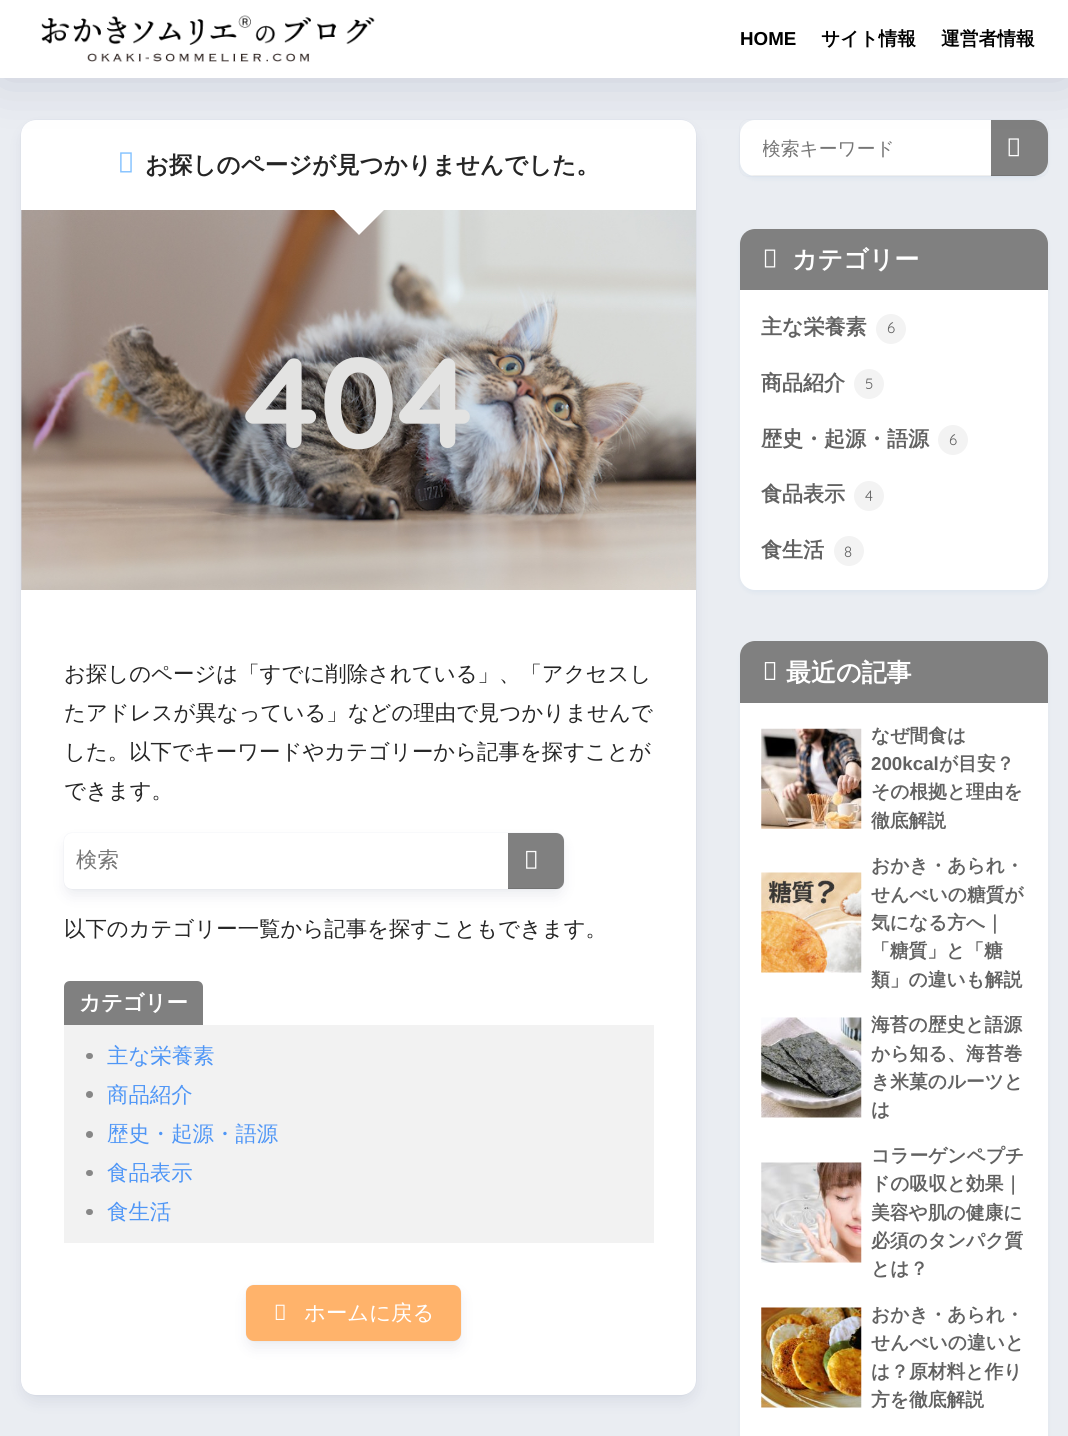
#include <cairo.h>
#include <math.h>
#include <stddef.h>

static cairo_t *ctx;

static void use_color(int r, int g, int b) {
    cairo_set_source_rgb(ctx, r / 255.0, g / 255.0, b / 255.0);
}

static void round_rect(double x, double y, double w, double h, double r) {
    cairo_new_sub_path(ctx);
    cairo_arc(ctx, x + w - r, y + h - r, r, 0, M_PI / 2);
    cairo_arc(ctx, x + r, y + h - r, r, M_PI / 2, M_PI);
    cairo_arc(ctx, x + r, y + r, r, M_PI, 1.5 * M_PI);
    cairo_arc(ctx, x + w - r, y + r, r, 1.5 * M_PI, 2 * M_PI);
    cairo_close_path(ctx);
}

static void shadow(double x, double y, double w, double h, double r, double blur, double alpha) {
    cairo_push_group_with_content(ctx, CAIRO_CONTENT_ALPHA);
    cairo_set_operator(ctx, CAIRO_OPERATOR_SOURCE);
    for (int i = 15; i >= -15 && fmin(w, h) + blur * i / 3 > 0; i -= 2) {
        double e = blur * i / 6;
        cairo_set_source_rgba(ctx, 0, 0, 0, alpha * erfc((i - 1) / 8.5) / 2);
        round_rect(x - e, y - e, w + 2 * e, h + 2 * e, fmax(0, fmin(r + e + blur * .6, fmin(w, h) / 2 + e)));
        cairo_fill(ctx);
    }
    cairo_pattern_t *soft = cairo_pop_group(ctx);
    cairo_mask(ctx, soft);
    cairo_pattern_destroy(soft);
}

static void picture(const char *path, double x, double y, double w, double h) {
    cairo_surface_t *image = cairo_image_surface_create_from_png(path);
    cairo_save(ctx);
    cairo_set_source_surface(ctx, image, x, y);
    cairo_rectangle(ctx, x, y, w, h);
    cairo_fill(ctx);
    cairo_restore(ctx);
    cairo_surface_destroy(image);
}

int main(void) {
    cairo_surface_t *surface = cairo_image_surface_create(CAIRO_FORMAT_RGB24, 1068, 1436);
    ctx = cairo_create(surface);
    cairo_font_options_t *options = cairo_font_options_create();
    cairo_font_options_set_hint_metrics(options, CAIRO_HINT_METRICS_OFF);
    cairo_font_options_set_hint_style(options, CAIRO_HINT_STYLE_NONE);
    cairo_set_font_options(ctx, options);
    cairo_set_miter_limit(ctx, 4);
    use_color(234, 237, 242);
    cairo_paint(ctx);
    use_color(0, 30, 100);
    shadow(21, 120, 675, 1275, 15, 0.5, 0.1);
    use_color(0, 12, 66);
    shadow(25, 131, 668, 1268, 11, 8, 0.1);
    use_color(255, 255, 255);
    cairo_new_path(ctx);
    cairo_move_to(ctx, 36, 120);
    cairo_line_to(ctx, 681, 120);
    cairo_curve_to(ctx, 689.5, 120, 696, 126.5, 696, 135);
    cairo_line_to(ctx, 696, 210);
    cairo_line_to(ctx, 21, 210);
    cairo_line_to(ctx, 21, 135);
    cairo_curve_to(ctx, 21, 126.5, 27.5, 120, 36, 120);
    cairo_close_path(ctx);
    cairo_fill(ctx);
    picture("img2.png", 120, 152, 12, 21);
    use_color(67, 133, 187);
    shadow(740, 123, 308, 56, 15, 2.5, 0.07);
    cairo_save(ctx);
    cairo_set_fill_rule(ctx, CAIRO_FILL_RULE_EVEN_ODD);
    cairo_new_path(ctx);
    cairo_move_to(ctx, 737, 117);
    cairo_line_to(ctx, 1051, 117);
    cairo_line_to(ctx, 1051, 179);
    cairo_line_to(ctx, 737, 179);
    cairo_close_path(ctx);
    cairo_move_to(ctx, 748, 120);
    cairo_line_to(ctx, 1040, 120);
    cairo_curve_to(ctx, 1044.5, 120, 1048, 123.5, 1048, 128);
    cairo_line_to(ctx, 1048, 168);
    cairo_curve_to(ctx, 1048, 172.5, 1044.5, 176, 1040, 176);
    cairo_line_to(ctx, 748, 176);
    cairo_curve_to(ctx, 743.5, 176, 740, 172.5, 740, 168);
    cairo_line_to(ctx, 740, 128);
    cairo_curve_to(ctx, 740, 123.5, 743.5, 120, 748, 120);
    cairo_close_path(ctx);
    cairo_clip(ctx);
    use_color(0, 30, 100);
    shadow(740, 120, 308, 56, 8, 0.5, 0.1);
    cairo_restore(ctx);
    use_color(255, 255, 255);
    round_rect(740, 120, 308, 56, 15);
    cairo_fill(ctx);
    cairo_save(ctx);
    round_rect(740, 120, 308, 56, 15);
    cairo_clip(ctx);
    use_color(239, 239, 239);
    cairo_rectangle(ctx, 744, 175, 300, 1);
    cairo_fill(ctx);
    cairo_restore(ctx);
    use_color(128, 128, 128);
    cairo_new_path(ctx);
    cairo_move_to(ctx, 991, 120);
    cairo_line_to(ctx, 1033, 120);
    cairo_curve_to(ctx, 1041.5, 120, 1048, 126.5, 1048, 135);
    cairo_line_to(ctx, 1048, 161);
    cairo_curve_to(ctx, 1048, 169.5, 1041.5, 176, 1033, 176);
    cairo_line_to(ctx, 991, 176);
    cairo_close_path(ctx);
    cairo_fill(ctx);
    picture("img6.png", 1008, 138, 11, 19);
    use_color(0, 12, 66);
    shadow(0, 0, 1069, 78, 0, 28, 0.15);
    use_color(255, 255, 255);
    cairo_rectangle(ctx, 0, 0, 1068, 78);
    cairo_fill(ctx);
    picture("img1.png", 41, 15, 334, 47);
    cairo_select_font_face(ctx, "Liberation Sans", CAIRO_FONT_SLANT_NORMAL, CAIRO_FONT_WEIGHT_BOLD);
    cairo_set_font_size(ctx, 18.75);
    use_color(0, 0, 0);
    cairo_move_to(ctx, 740, 45);
    cairo_show_text(ctx, "HOME");
    cairo_select_font_face(ctx, "WenQuanYi Zen Hei", CAIRO_FONT_SLANT_NORMAL, CAIRO_FONT_WEIGHT_BOLD);
    cairo_move_to(ctx, 821, 45);
    cairo_show_text(ctx, "サイト情報");
    cairo_move_to(ctx, 941, 45);
    cairo_show_text(ctx, "運営者情報");
    cairo_set_font_size(ctx, 23.5);
    use_color(37, 37, 37);
    cairo_move_to(ctx, 145, 173);
    cairo_show_text(ctx, "お探しのページが見つかりませんでした。");
    picture("img3.png", 21, 210, 676, 380);
    use_color(255, 255, 255);
    cairo_new_path(ctx);
    cairo_move_to(ctx, 334, 210);
    cairo_line_to(ctx, 384, 210);
    cairo_line_to(ctx, 359, 235);
    cairo_close_path(ctx);
    cairo_fill(ctx);
    cairo_select_font_face(ctx, "Quicksand", CAIRO_FONT_SLANT_NORMAL, CAIRO_FONT_WEIGHT_BOLD);
    cairo_set_font_size(ctx, 128);
    use_color(227, 227, 226);
    cairo_move_to(ctx, 244, 448);
    cairo_show_text(ctx, "404");
    use_color(255, 255, 255);
    cairo_new_path(ctx);
    cairo_move_to(ctx, 21, 590);
    cairo_line_to(ctx, 696, 590);
    cairo_line_to(ctx, 696, 1380);
    cairo_curve_to(ctx, 696, 1388.5, 689.5, 1395, 681, 1395);
    cairo_line_to(ctx, 36, 1395);
    cairo_curve_to(ctx, 27.5, 1395, 21, 1388.5, 21, 1380);
    cairo_close_path(ctx);
    cairo_fill(ctx);
    cairo_select_font_face(ctx, "WenQuanYi Zen Hei Medium", CAIRO_FONT_SLANT_NORMAL, CAIRO_FONT_WEIGHT_NORMAL);
    cairo_set_font_size(ctx, 21.4);
    use_color(37, 37, 37);
    cairo_move_to(ctx, 64, 681);
    cairo_show_text(ctx, "お探しのページは「すでに削除されている」、「アクセスし");
    cairo_move_to(ctx, 64, 720);
    cairo_show_text(ctx, "たアドレスが異なっている」などの理由で見つかりませんで");
    cairo_move_to(ctx, 64, 759);
    cairo_show_text(ctx, "した。以下でキーワードやカテゴリーから記事を探すことが");
    cairo_move_to(ctx, 64, 798);
    cairo_show_text(ctx, "できます。");
    use_color(0, 30, 100);
    shadow(64, 833, 500, 56, 8, 0.5, 0.1);
    use_color(0, 12, 66);
    shadow(68, 844, 492, 49, 4, 8, 0.1);
    use_color(255, 255, 255);
    round_rect(64, 833, 500, 56, 8);
    cairo_fill(ctx);
    use_color(117, 117, 117);
    cairo_move_to(ctx, 76, 867);
    cairo_show_text(ctx, "検索");
    use_color(128, 128, 128);
    cairo_new_path(ctx);
    cairo_move_to(ctx, 508, 833);
    cairo_line_to(ctx, 556, 833);
    cairo_curve_to(ctx, 560.5, 833, 564, 836.5, 564, 841);
    cairo_line_to(ctx, 564, 881);
    cairo_curve_to(ctx, 564, 885.5, 560.5, 889, 556, 889);
    cairo_line_to(ctx, 508, 889);
    cairo_close_path(ctx);
    cairo_fill(ctx);
    cairo_set_source_rgba(ctx, 0, 0, 0, 0.1);
    cairo_rectangle(ctx, 508, 888, 52, 1);
    cairo_fill(ctx);
    picture("img4.png", 526, 850, 11, 19);
    use_color(37, 37, 37);
    cairo_move_to(ctx, 64, 936);
    cairo_show_text(ctx, "以下のカテゴリー一覧から記事を探すこともできます。");
    use_color(128, 128, 128);
    cairo_new_path(ctx);
    cairo_move_to(ctx, 70, 981);
    cairo_line_to(ctx, 197, 981);
    cairo_curve_to(ctx, 200.5, 981, 203, 983.5, 203, 987);
    cairo_line_to(ctx, 203, 1025);
    cairo_line_to(ctx, 64, 1025);
    cairo_line_to(ctx, 64, 987);
    cairo_curve_to(ctx, 64, 983.5, 66.5, 981, 70, 981);
    cairo_close_path(ctx);
    cairo_fill(ctx);
    cairo_select_font_face(ctx, "WenQuanYi Zen Hei", CAIRO_FONT_SLANT_NORMAL, CAIRO_FONT_WEIGHT_BOLD);
    use_color(255, 255, 255);
    cairo_move_to(ctx, 79, 1010);
    cairo_show_text(ctx, "カテゴリー");
    use_color(242, 242, 242);
    cairo_rectangle(ctx, 64, 1025, 590, 218);
    cairo_fill(ctx);
    use_color(135, 135, 135);
    round_rect(86, 1053, 7, 6, 3);
    cairo_fill(ctx);
    cairo_select_font_face(ctx, "WenQuanYi Zen Hei Medium", CAIRO_FONT_SLANT_NORMAL, CAIRO_FONT_WEIGHT_NORMAL);
    use_color(79, 150, 246);
    cairo_move_to(ctx, 107, 1063);
    cairo_show_text(ctx, "主な栄養素");
    use_color(135, 135, 135);
    cairo_new_path(ctx);
    cairo_arc(ctx, 89.5, 1094.5, 3.5, 0, 2 * M_PI);
    cairo_fill(ctx);
    use_color(79, 150, 246);
    cairo_move_to(ctx, 107, 1102);
    cairo_show_text(ctx, "商品紹介");
    use_color(135, 135, 135);
    cairo_new_path(ctx);
    cairo_arc(ctx, 89.5, 1134.5, 3.5, 0, 2 * M_PI);
    cairo_fill(ctx);
    use_color(79, 150, 246);
    cairo_move_to(ctx, 107, 1141);
    cairo_show_text(ctx, "歴史・起源・語源");
    use_color(135, 135, 135);
    round_rect(86, 1170, 7, 6, 3);
    cairo_fill(ctx);
    use_color(79, 150, 246);
    cairo_move_to(ctx, 107, 1180);
    cairo_show_text(ctx, "食品表示");
    use_color(135, 135, 135);
    round_rect(86, 1209, 7, 6, 3);
    cairo_fill(ctx);
    use_color(79, 150, 246);
    cairo_move_to(ctx, 107, 1219);
    cairo_show_text(ctx, "食生活");
    use_color(0, 30, 100);
    shadow(246, 1285, 215, 56, 8, 0.5, 0.1);
    use_color(0, 12, 66);
    shadow(250, 1296, 208, 49, 4, 8, 0.1);
    use_color(255, 179, 107);
    round_rect(246, 1285, 215, 56, 8);
    cairo_fill(ctx);
    picture("img5.png", 275, 1304, 10, 16);
    use_color(255, 255, 255);
    cairo_move_to(ctx, 304, 1320);
    cairo_show_text(ctx, "ホームに戻る");
    cairo_save(ctx);
    cairo_rectangle(ctx, 763, 136, 220, 25);
    cairo_clip(ctx);
    cairo_set_font_size(ctx, 18.75);
    use_color(117, 117, 117);
    cairo_move_to(ctx, 762, 155);
    cairo_show_text(ctx, "検索キーワード");
    cairo_restore(ctx);
    cairo_save(ctx);
    round_rect(740, 120, 308, 56, 15);
    cairo_clip(ctx);
    cairo_set_source_rgba(ctx, 0, 0, 0, 0.1);
    cairo_rectangle(ctx, 991, 175, 53, 1);
    cairo_fill(ctx);
    cairo_restore(ctx);
    use_color(67, 133, 187);
    shadow(740, 231, 308, 362, 15, 2.5, 0.07);
    use_color(255, 255, 255);
    round_rect(740, 229, 308, 361, 15);
    cairo_fill(ctx);
    use_color(128, 128, 128);
    cairo_new_path(ctx);
    cairo_move_to(ctx, 755, 229);
    cairo_line_to(ctx, 1033, 229);
    cairo_curve_to(ctx, 1041.5, 229, 1048, 235.5, 1048, 244);
    cairo_line_to(ctx, 1048, 290);
    cairo_line_to(ctx, 740, 290);
    cairo_line_to(ctx, 740, 244);
    cairo_curve_to(ctx, 740, 235.5, 746.5, 229, 755, 229);
    cairo_close_path(ctx);
    cairo_fill(ctx);
    picture("img7.png", 764, 249, 12, 19);
    cairo_select_font_face(ctx, "WenQuanYi Zen Hei", CAIRO_FONT_SLANT_NORMAL, CAIRO_FONT_WEIGHT_BOLD);
    cairo_set_font_size(ctx, 25);
    use_color(255, 255, 255);
    cairo_move_to(ctx, 792, 268);
    cairo_show_text(ctx, "カテゴリー");
    cairo_set_font_size(ctx, 21);
    use_color(98, 98, 98);
    cairo_move_to(ctx, 761, 334);
    cairo_show_text(ctx, "主な栄養素");
    use_color(243, 243, 243);
    cairo_new_path(ctx);
    cairo_arc(ctx, 891, 329, 15, 0, 2 * M_PI);
    cairo_fill(ctx);
    cairo_select_font_face(ctx, "Quicksand", CAIRO_FONT_SLANT_NORMAL, CAIRO_FONT_WEIGHT_NORMAL);
    cairo_set_font_size(ctx, 15);
    use_color(98, 98, 98);
    cairo_move_to(ctx, 887, 333);
    cairo_show_text(ctx, "6");
    cairo_select_font_face(ctx, "WenQuanYi Zen Hei", CAIRO_FONT_SLANT_NORMAL, CAIRO_FONT_WEIGHT_BOLD);
    cairo_set_font_size(ctx, 21);
    cairo_move_to(ctx, 761, 390);
    cairo_show_text(ctx, "商品紹介");
    use_color(243, 243, 243);
    cairo_new_path(ctx);
    cairo_arc(ctx, 869, 384, 15, 0, 2 * M_PI);
    cairo_fill(ctx);
    cairo_select_font_face(ctx, "Quicksand", CAIRO_FONT_SLANT_NORMAL, CAIRO_FONT_WEIGHT_NORMAL);
    cairo_set_font_size(ctx, 15);
    use_color(98, 98, 98);
    cairo_move_to(ctx, 865, 389);
    cairo_show_text(ctx, "5");
    cairo_select_font_face(ctx, "WenQuanYi Zen Hei", CAIRO_FONT_SLANT_NORMAL, CAIRO_FONT_WEIGHT_BOLD);
    cairo_set_font_size(ctx, 21);
    cairo_move_to(ctx, 761, 446);
    cairo_show_text(ctx, "歴史・起源・語源");
    use_color(243, 243, 243);
    cairo_new_path(ctx);
    cairo_arc(ctx, 953, 440, 15, 0, 2 * M_PI);
    cairo_fill(ctx);
    cairo_select_font_face(ctx, "Quicksand", CAIRO_FONT_SLANT_NORMAL, CAIRO_FONT_WEIGHT_NORMAL);
    cairo_set_font_size(ctx, 15);
    use_color(98, 98, 98);
    cairo_move_to(ctx, 949, 445);
    cairo_show_text(ctx, "6");
    cairo_select_font_face(ctx, "WenQuanYi Zen Hei", CAIRO_FONT_SLANT_NORMAL, CAIRO_FONT_WEIGHT_BOLD);
    cairo_set_font_size(ctx, 21);
    cairo_move_to(ctx, 761, 501);
    cairo_show_text(ctx, "食品表示");
    use_color(243, 243, 243);
    cairo_new_path(ctx);
    cairo_arc(ctx, 869, 496, 15, 0, 2 * M_PI);
    cairo_fill(ctx);
    cairo_select_font_face(ctx, "Quicksand", CAIRO_FONT_SLANT_NORMAL, CAIRO_FONT_WEIGHT_NORMAL);
    cairo_set_font_size(ctx, 15);
    use_color(98, 98, 98);
    cairo_move_to(ctx, 865, 501);
    cairo_show_text(ctx, "4");
    cairo_select_font_face(ctx, "WenQuanYi Zen Hei", CAIRO_FONT_SLANT_NORMAL, CAIRO_FONT_WEIGHT_BOLD);
    cairo_set_font_size(ctx, 21);
    cairo_move_to(ctx, 761, 557);
    cairo_show_text(ctx, "食生活");
    use_color(243, 243, 243);
    cairo_new_path(ctx);
    cairo_arc(ctx, 849, 551, 15, 0, 2 * M_PI);
    cairo_fill(ctx);
    cairo_select_font_face(ctx, "Quicksand", CAIRO_FONT_SLANT_NORMAL, CAIRO_FONT_WEIGHT_NORMAL);
    cairo_set_font_size(ctx, 15);
    use_color(98, 98, 98);
    cairo_move_to(ctx, 844, 557);
    cairo_show_text(ctx, "8");
    use_color(67, 133, 187);
    shadow(740, 644, 308, 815, 15, 2.5, 0.07);
    use_color(255, 255, 255);
    round_rect(740, 641, 308, 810, 15);
    cairo_fill(ctx);
    use_color(128, 128, 128);
    cairo_new_path(ctx);
    cairo_move_to(ctx, 755, 641);
    cairo_line_to(ctx, 1033, 641);
    cairo_curve_to(ctx, 1041.5, 641, 1048, 647.5, 1048, 656);
    cairo_line_to(ctx, 1048, 703);
    cairo_line_to(ctx, 740, 703);
    cairo_line_to(ctx, 740, 656);
    cairo_curve_to(ctx, 740, 647.5, 746.5, 641, 755, 641);
    cairo_close_path(ctx);
    cairo_fill(ctx);
    picture("img8.png", 764, 662, 12, 18);
    cairo_select_font_face(ctx, "WenQuanYi Zen Hei", CAIRO_FONT_SLANT_NORMAL, CAIRO_FONT_WEIGHT_BOLD);
    cairo_set_font_size(ctx, 25);
    use_color(255, 255, 255);
    cairo_move_to(ctx, 786, 681);
    cairo_show_text(ctx, "最近の記事");
    picture("img9.png", 761, 728, 101, 101);
    cairo_set_font_size(ctx, 18.75);
    use_color(98, 98, 98);
    cairo_move_to(ctx, 871, 742);
    cairo_show_text(ctx, "なぜ間食は");
    cairo_select_font_face(ctx, "Liberation Sans", CAIRO_FONT_SLANT_NORMAL, CAIRO_FONT_WEIGHT_BOLD);
    cairo_move_to(ctx, 871, 770);
    cairo_show_text(ctx, "200kcal");
    cairo_select_font_face(ctx, "WenQuanYi Zen Hei", CAIRO_FONT_SLANT_NORMAL, CAIRO_FONT_WEIGHT_BOLD);
    cairo_move_to(ctx, 939, 770);
    cairo_show_text(ctx, "が目安？");
    cairo_move_to(ctx, 871, 798);
    cairo_show_text(ctx, "その根拠と理由を");
    cairo_move_to(ctx, 871, 827);
    cairo_show_text(ctx, "徹底解説");
    picture("img10.png", 761, 872, 101, 101);
    cairo_move_to(ctx, 871, 872);
    cairo_show_text(ctx, "おかき・あられ・");
    cairo_move_to(ctx, 871, 901);
    cairo_show_text(ctx, "せんべいの糖質が");
    cairo_move_to(ctx, 871, 929);
    cairo_show_text(ctx, "気になる方へ｜");
    cairo_move_to(ctx, 871, 957);
    cairo_show_text(ctx, "「糖質」と「糖");
    cairo_move_to(ctx, 871, 986);
    cairo_show_text(ctx, "類」の違いも解説");
    picture("img11.png", 761, 1017, 101, 101);
    cairo_move_to(ctx, 871, 1031);
    cairo_show_text(ctx, "海苔の歴史と語源");
    cairo_move_to(ctx, 871, 1060);
    cairo_show_text(ctx, "から知る、海苔巻");
    cairo_move_to(ctx, 871, 1088);
    cairo_show_text(ctx, "き米菓のルーツと");
    cairo_move_to(ctx, 871, 1116);
    cairo_show_text(ctx, "は");
    picture("img12.png", 761, 1162, 101, 101);
    cairo_move_to(ctx, 871, 1162);
    cairo_show_text(ctx, "コラーゲンペプチ");
    cairo_move_to(ctx, 871, 1190);
    cairo_show_text(ctx, "ドの吸収と効果｜");
    cairo_move_to(ctx, 871, 1219);
    cairo_show_text(ctx, "美容や肌の健康に");
    cairo_move_to(ctx, 871, 1247);
    cairo_show_text(ctx, "必須のタンパク質");
    cairo_move_to(ctx, 871, 1275);
    cairo_show_text(ctx, "とは？");
    picture("img13.png", 761, 1307, 101, 101);
    cairo_move_to(ctx, 871, 1321);
    cairo_show_text(ctx, "おかき・あられ・");
    cairo_move_to(ctx, 871, 1349);
    cairo_show_text(ctx, "せんべいの違いと");
    cairo_move_to(ctx, 871, 1378);
    cairo_show_text(ctx, "は？原材料と作り");
    cairo_move_to(ctx, 871, 1406);
    cairo_show_text(ctx, "方を徹底解説");
    cairo_surface_write_to_png(surface, "result.png");
    cairo_font_options_destroy(options);
    cairo_destroy(ctx);
    cairo_surface_destroy(surface);
    return 0;
}
